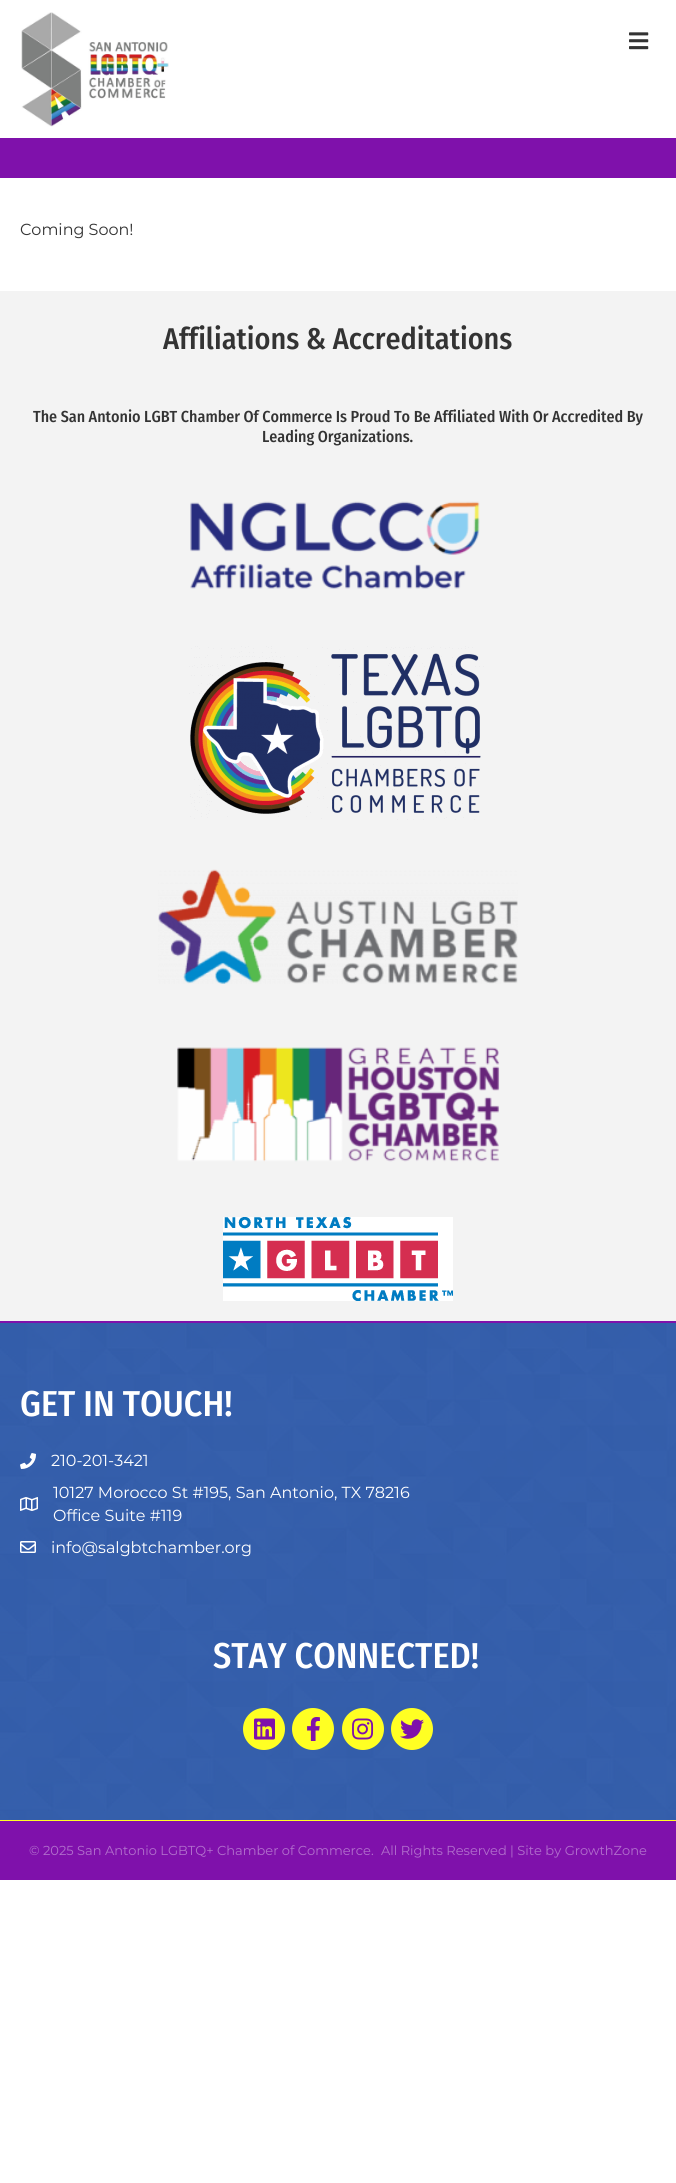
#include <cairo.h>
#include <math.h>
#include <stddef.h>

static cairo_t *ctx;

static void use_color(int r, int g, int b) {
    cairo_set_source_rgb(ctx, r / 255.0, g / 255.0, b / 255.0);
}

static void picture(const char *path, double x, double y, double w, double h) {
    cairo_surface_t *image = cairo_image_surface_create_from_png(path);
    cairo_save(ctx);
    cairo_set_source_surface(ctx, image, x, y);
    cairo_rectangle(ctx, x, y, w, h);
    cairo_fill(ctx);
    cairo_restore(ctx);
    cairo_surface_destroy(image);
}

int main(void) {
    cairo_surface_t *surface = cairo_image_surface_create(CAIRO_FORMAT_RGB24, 676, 2183);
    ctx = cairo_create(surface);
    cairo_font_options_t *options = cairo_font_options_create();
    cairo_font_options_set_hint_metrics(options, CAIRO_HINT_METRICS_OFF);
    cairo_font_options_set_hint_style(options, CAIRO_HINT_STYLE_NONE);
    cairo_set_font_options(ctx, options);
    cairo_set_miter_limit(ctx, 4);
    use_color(255, 255, 255);
    cairo_paint(ctx);
    picture("img1.png", 21, 12, 148, 115);
    picture("img2.png", 629, 32, 20, 18);
    use_color(127, 17, 171);
    cairo_rectangle(ctx, 0, 138, 676, 40);
    cairo_fill(ctx);
    cairo_select_font_face(ctx, "Montserrat", CAIRO_FONT_SLANT_NORMAL, CAIRO_FONT_WEIGHT_NORMAL);
    cairo_set_font_size(ctx, 16);
    use_color(51, 51, 51);
    cairo_move_to(ctx, 20, 235);
    cairo_show_text(ctx, "Coming Soon!");
    use_color(243, 243, 243);
    cairo_rectangle(ctx, 0, 291, 676, 1030);
    cairo_fill(ctx);
    cairo_select_font_face(ctx, "Fira Sans Condensed Medium", CAIRO_FONT_SLANT_NORMAL, CAIRO_FONT_WEIGHT_NORMAL);
    cairo_set_font_size(ctx, 30);
    use_color(51, 51, 51);
    cairo_move_to(ctx, 163, 349);
    cairo_show_text(ctx, "Affiliations & Accreditations");
    cairo_set_font_size(ctx, 16);
    cairo_move_to(ctx, 33, 422);
    cairo_show_text(ctx, "The San Antonio LGBT Chamber Of Commerce Is Proud To Be Affiliated With Or Accredited By");
    cairo_move_to(ctx, 262, 442);
    cairo_show_text(ctx, "Leading Organizations.");
    picture("img3.png", 190, 501, 290, 88);
    picture("img4.png", 189, 646, 295, 174);
    picture("img5.png", 158, 869, 360, 115);
    picture("img6.png", 177, 1047, 323, 115);
    picture("img7.png", 223, 1217, 230, 84);
    picture("img8.png", 0, 1323, 676, 497);
    use_color(127, 17, 171);
    cairo_rectangle(ctx, 0, 1321, 676, 2);
    cairo_fill(ctx);
    cairo_set_font_size(ctx, 36);
    use_color(255, 255, 255);
    cairo_move_to(ctx, 20, 1416);
    cairo_show_text(ctx, "GET IN TOUCH!");
    picture("img9.png", 20, 1453, 16, 16);
    cairo_select_font_face(ctx, "Montserrat", CAIRO_FONT_SLANT_NORMAL, CAIRO_FONT_WEIGHT_NORMAL);
    cairo_set_font_size(ctx, 16);
    cairo_move_to(ctx, 51, 1466);
    cairo_show_text(ctx, "210-201-3421");
    picture("img10.png", 20, 1497, 18, 14);
    cairo_move_to(ctx, 53, 1498);
    cairo_show_text(ctx, "10127 Morocco St #195, San Antonio, TX 78216");
    cairo_move_to(ctx, 53, 1521);
    cairo_show_text(ctx, "Office Suite #119");
    picture("img11.png", 20, 1541, 16, 12);
    cairo_move_to(ctx, 51, 1553);
    cairo_show_text(ctx, "info@salgbtchamber.org");
    cairo_select_font_face(ctx, "Fira Sans Condensed Medium", CAIRO_FONT_SLANT_NORMAL, CAIRO_FONT_WEIGHT_NORMAL);
    cairo_set_font_size(ctx, 36);
    cairo_move_to(ctx, 213, 1668);
    cairo_show_text(ctx, "STAY CONNECTED!");
    use_color(255, 255, 35);
    cairo_new_path(ctx);
    cairo_arc(ctx, 264, 1729, 21, 0, 2 * M_PI);
    cairo_fill(ctx);
    picture("img12.png", 254, 1718, 21, 22);
    cairo_arc(ctx, 313, 1729, 21, 0, 2 * M_PI);
    cairo_fill(ctx);
    picture("img13.png", 307, 1717, 13, 24);
    cairo_arc(ctx, 363, 1729, 21, 0, 2 * M_PI);
    cairo_fill(ctx);
    picture("img14.png", 352, 1718, 22, 22);
    cairo_arc(ctx, 412, 1729, 21, 0, 2 * M_PI);
    cairo_fill(ctx);
    picture("img15.png", 400, 1719, 24, 20);
    use_color(127, 17, 171);
    cairo_rectangle(ctx, 0, 1821, 676, 59);
    cairo_fill(ctx);
    use_color(255, 255, 35);
    cairo_rectangle(ctx, 0, 1820, 676, 1);
    cairo_fill(ctx);
    cairo_select_font_face(ctx, "Montserrat", CAIRO_FONT_SLANT_NORMAL, CAIRO_FONT_WEIGHT_NORMAL);
    cairo_set_font_size(ctx, 13);
    use_color(178, 112, 205);
    cairo_move_to(ctx, 29, 1855);
    cairo_show_text(ctx, "© 2025 San Antonio LGBTQ+ Chamber of Commerce.");
    cairo_move_to(ctx, 381, 1855);
    cairo_show_text(ctx, "All Rights Reserved | Site by GrowthZone");
    cairo_surface_write_to_png(surface, "result.png");
    cairo_font_options_destroy(options);
    cairo_destroy(ctx);
    cairo_surface_destroy(surface);
    return 0;
}
